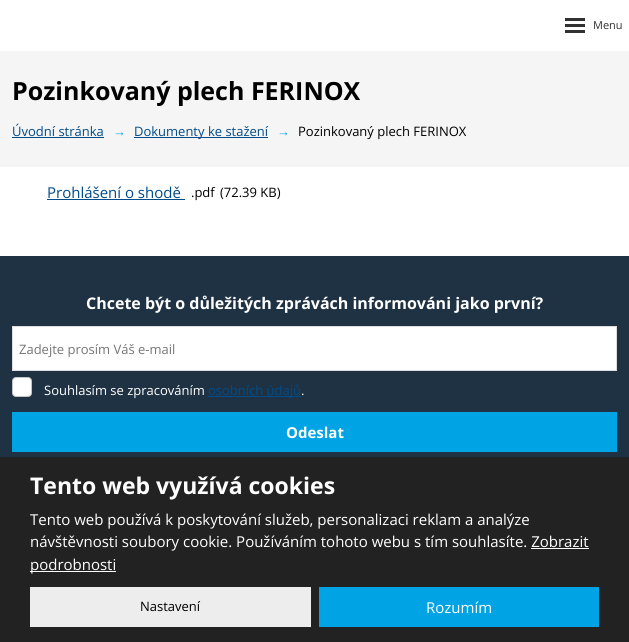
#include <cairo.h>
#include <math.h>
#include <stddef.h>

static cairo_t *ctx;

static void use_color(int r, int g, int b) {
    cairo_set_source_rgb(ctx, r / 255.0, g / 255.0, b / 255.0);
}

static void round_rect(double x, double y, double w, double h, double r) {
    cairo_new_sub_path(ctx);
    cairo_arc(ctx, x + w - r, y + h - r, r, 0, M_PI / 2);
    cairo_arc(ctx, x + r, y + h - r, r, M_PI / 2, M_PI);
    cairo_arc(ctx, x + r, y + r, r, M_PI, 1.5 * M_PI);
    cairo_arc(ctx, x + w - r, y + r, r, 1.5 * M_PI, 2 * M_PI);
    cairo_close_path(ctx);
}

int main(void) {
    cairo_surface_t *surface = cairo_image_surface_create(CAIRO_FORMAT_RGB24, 629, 642);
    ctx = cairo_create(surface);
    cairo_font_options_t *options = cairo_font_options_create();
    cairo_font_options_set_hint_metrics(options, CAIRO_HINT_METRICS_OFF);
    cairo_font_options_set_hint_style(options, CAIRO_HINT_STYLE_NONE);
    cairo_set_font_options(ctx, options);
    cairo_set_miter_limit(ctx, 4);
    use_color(255, 255, 255);
    cairo_paint(ctx);
    use_color(49, 49, 49);
    cairo_rectangle(ctx, 565, 18, 20, 3);
    cairo_fill(ctx);
    cairo_rectangle(ctx, 565, 24, 20, 3);
    cairo_fill(ctx);
    cairo_select_font_face(ctx, "Open Sans", CAIRO_FONT_SLANT_NORMAL, CAIRO_FONT_WEIGHT_NORMAL);
    cairo_set_font_size(ctx, 11);
    cairo_move_to(ctx, 593, 29);
    cairo_show_text(ctx, "Menu");
    cairo_rectangle(ctx, 565, 30, 20, 3);
    cairo_fill(ctx);
    use_color(245, 245, 245);
    cairo_rectangle(ctx, 0, 51, 629, 116);
    cairo_fill(ctx);
    cairo_select_font_face(ctx, "Open Sans", CAIRO_FONT_SLANT_NORMAL, CAIRO_FONT_WEIGHT_BOLD);
    cairo_set_font_size(ctx, 25);
    use_color(0, 0, 0);
    cairo_move_to(ctx, 12, 100);
    cairo_show_text(ctx, "Pozinkovaný plech FERINOX");
    cairo_select_font_face(ctx, "Open Sans", CAIRO_FONT_SLANT_NORMAL, CAIRO_FONT_WEIGHT_NORMAL);
    cairo_set_font_size(ctx, 13);
    use_color(0, 75, 136);
    cairo_move_to(ctx, 12, 136);
    cairo_show_text(ctx, "Úvodní stránka");
    cairo_rectangle(ctx, 12, 137, 92, 1);
    cairo_fill(ctx);
    cairo_select_font_face(ctx, "Liberation Sans", CAIRO_FONT_SLANT_NORMAL, CAIRO_FONT_WEIGHT_BOLD);
    use_color(0, 163, 228);
    cairo_move_to(ctx, 113, 136);
    cairo_show_text(ctx, "→");
    use_color(0, 75, 136);
    cairo_rectangle(ctx, 134, 137, 134, 1);
    cairo_fill(ctx);
    cairo_select_font_face(ctx, "Open Sans", CAIRO_FONT_SLANT_NORMAL, CAIRO_FONT_WEIGHT_NORMAL);
    cairo_move_to(ctx, 134, 136);
    cairo_show_text(ctx, "Dokumenty ke stažení");
    cairo_select_font_face(ctx, "Liberation Sans", CAIRO_FONT_SLANT_NORMAL, CAIRO_FONT_WEIGHT_BOLD);
    use_color(0, 163, 228);
    cairo_move_to(ctx, 277, 136);
    cairo_show_text(ctx, "→");
    cairo_select_font_face(ctx, "Open Sans", CAIRO_FONT_SLANT_NORMAL, CAIRO_FONT_WEIGHT_NORMAL);
    use_color(0, 0, 0);
    cairo_move_to(ctx, 298, 136);
    cairo_show_text(ctx, "Pozinkovaný plech FERINOX");
    cairo_set_font_size(ctx, 15);
    use_color(0, 75, 136);
    cairo_move_to(ctx, 47, 198);
    cairo_show_text(ctx, "Prohlášení o shodě");
    cairo_rectangle(ctx, 47, 199, 138, 1);
    cairo_fill(ctx);
    cairo_set_font_size(ctx, 13);
    use_color(0, 0, 0);
    cairo_move_to(ctx, 191, 197);
    cairo_show_text(ctx, ".pdf");
    cairo_move_to(ctx, 220, 197);
    cairo_show_text(ctx, "(72.39 KB)");
    use_color(30, 50, 68);
    cairo_rectangle(ctx, 0, 256, 629, 201);
    cairo_fill(ctx);
    cairo_select_font_face(ctx, "Open Sans", CAIRO_FONT_SLANT_NORMAL, CAIRO_FONT_WEIGHT_BOLD);
    cairo_set_font_size(ctx, 16);
    use_color(255, 255, 255);
    cairo_move_to(ctx, 86, 309);
    cairo_show_text(ctx, "Chcete být o důležitých zprávách informováni jako první?");
    cairo_rectangle(ctx, 12.5, 326.5, 604, 44);
    cairo_fill_preserve(ctx);
    use_color(221, 221, 221);
    cairo_set_line_width(ctx, 1);
    cairo_stroke(ctx);
    cairo_select_font_face(ctx, "Open Sans", CAIRO_FONT_SLANT_NORMAL, CAIRO_FONT_WEIGHT_NORMAL);
    cairo_set_font_size(ctx, 13);
    use_color(117, 117, 117);
    cairo_move_to(ctx, 19, 354);
    cairo_show_text(ctx, "Zadejte prosím Váš e-mail");
    use_color(255, 255, 255);
    round_rect(12.5, 377.5, 19, 19, 3.5);
    cairo_fill_preserve(ctx);
    use_color(196, 196, 196);
    cairo_stroke(ctx);
    use_color(255, 255, 255);
    cairo_move_to(ctx, 44, 395);
    cairo_show_text(ctx, "Souhlasím se zpracováním");
    use_color(0, 75, 136);
    cairo_rectangle(ctx, 208, 396, 93, 1);
    cairo_fill(ctx);
    cairo_move_to(ctx, 208, 395);
    cairo_show_text(ctx, "osobních údajů");
    use_color(255, 255, 255);
    cairo_move_to(ctx, 301, 395);
    cairo_show_text(ctx, ".");
    use_color(0, 163, 228);
    cairo_rectangle(ctx, 12, 412, 605, 40);
    cairo_fill(ctx);
    cairo_select_font_face(ctx, "Open Sans", CAIRO_FONT_SLANT_NORMAL, CAIRO_FONT_WEIGHT_BOLD);
    cairo_set_font_size(ctx, 15);
    use_color(255, 255, 255);
    cairo_move_to(ctx, 286, 438);
    cairo_show_text(ctx, "Odeslat");
    use_color(34, 34, 34);
    cairo_rectangle(ctx, 0, 457, 629, 185);
    cairo_fill(ctx);
    cairo_set_font_size(ctx, 23);
    use_color(255, 255, 255);
    cairo_move_to(ctx, 30, 494);
    cairo_show_text(ctx, "Tento web využívá cookies");
    cairo_select_font_face(ctx, "Open Sans", CAIRO_FONT_SLANT_NORMAL, CAIRO_FONT_WEIGHT_NORMAL);
    cairo_set_font_size(ctx, 15);
    cairo_move_to(ctx, 30, 525);
    cairo_show_text(ctx, "Tento web používá k poskytování služeb, personalizaci reklam a analýze");
    cairo_move_to(ctx, 30, 547);
    cairo_show_text(ctx, "návštěvnosti soubory cookie. Používáním tohoto webu s tím souhlasíte. Zobrazit");
    cairo_rectangle(ctx, 30, 571, 86, 1);
    cairo_fill(ctx);
    cairo_move_to(ctx, 30, 570);
    cairo_show_text(ctx, "podrobnosti");
    cairo_rectangle(ctx, 531, 548, 58, 1);
    cairo_fill(ctx);
    use_color(237, 237, 237);
    cairo_rectangle(ctx, 30, 587, 281, 40);
    cairo_fill(ctx);
    cairo_set_font_size(ctx, 13);
    use_color(0, 0, 0);
    cairo_move_to(ctx, 140, 611);
    cairo_show_text(ctx, "Nastavení");
    use_color(0, 163, 228);
    cairo_rectangle(ctx, 319, 587, 280, 40);
    cairo_fill(ctx);
    cairo_set_font_size(ctx, 15);
    use_color(255, 255, 255);
    cairo_move_to(ctx, 426, 613);
    cairo_show_text(ctx, "Rozumím");
    cairo_surface_write_to_png(surface, "result.png");
    cairo_font_options_destroy(options);
    cairo_destroy(ctx);
    cairo_surface_destroy(surface);
    return 0;
}
